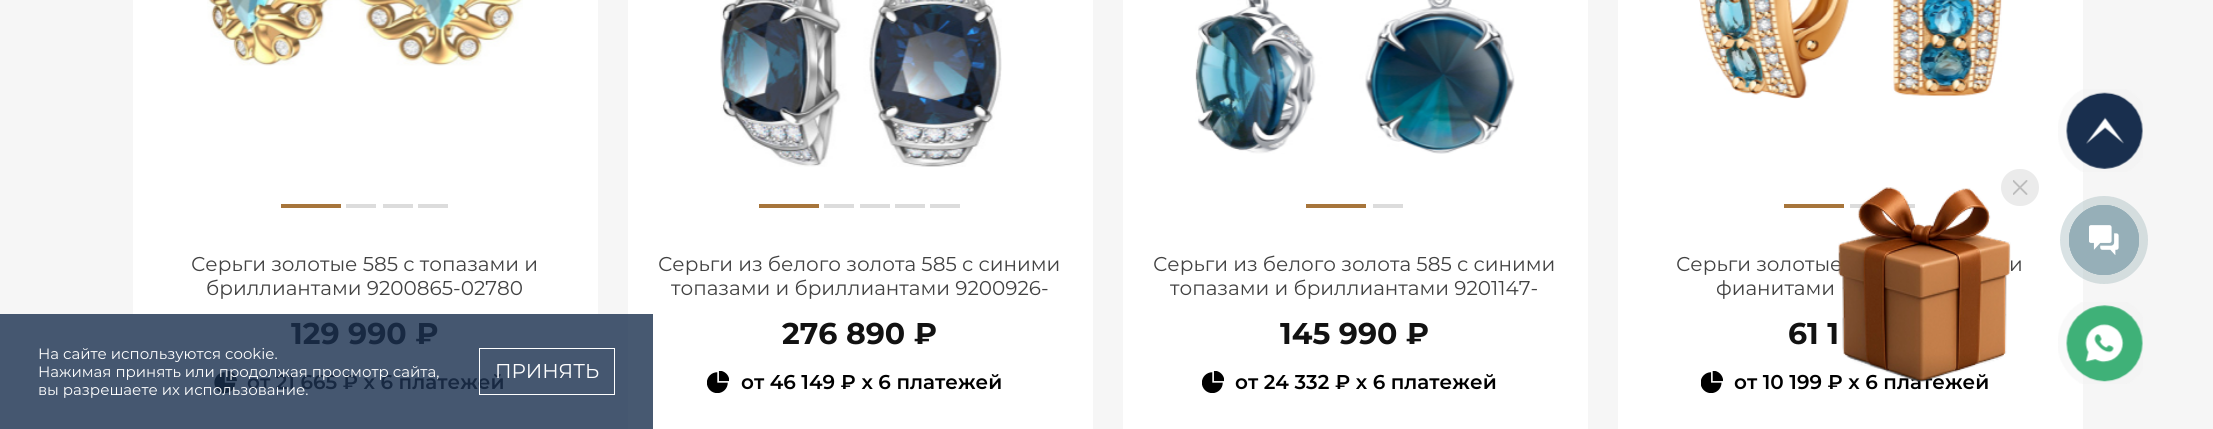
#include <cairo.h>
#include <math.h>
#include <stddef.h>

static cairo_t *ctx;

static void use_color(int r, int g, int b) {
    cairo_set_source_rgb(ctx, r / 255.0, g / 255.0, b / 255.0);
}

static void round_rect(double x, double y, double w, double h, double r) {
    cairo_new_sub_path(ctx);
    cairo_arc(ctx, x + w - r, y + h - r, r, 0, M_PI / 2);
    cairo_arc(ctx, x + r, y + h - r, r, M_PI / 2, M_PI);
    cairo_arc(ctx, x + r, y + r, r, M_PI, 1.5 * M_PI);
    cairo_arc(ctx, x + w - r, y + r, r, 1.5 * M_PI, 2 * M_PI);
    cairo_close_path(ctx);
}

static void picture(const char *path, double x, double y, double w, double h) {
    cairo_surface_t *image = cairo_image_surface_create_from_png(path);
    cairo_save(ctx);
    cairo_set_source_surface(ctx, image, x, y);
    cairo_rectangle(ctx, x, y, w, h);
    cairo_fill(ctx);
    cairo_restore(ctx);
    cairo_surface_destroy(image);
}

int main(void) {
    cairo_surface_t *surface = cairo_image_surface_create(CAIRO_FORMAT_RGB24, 2213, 429);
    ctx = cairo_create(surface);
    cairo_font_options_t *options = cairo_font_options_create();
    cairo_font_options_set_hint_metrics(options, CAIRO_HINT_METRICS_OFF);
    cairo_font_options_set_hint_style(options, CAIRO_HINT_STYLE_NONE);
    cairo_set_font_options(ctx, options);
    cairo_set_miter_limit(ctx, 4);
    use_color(246, 246, 246);
    cairo_paint(ctx);
    use_color(255, 255, 255);
    cairo_rectangle(ctx, 1618, 0, 465, 429);
    cairo_fill(ctx);
    picture("img1.png", 2058, 89, 85, 83);
    use_color(167, 117, 59);
    cairo_rectangle(ctx, 1784, 204, 60, 4);
    cairo_fill(ctx);
    use_color(220, 220, 220);
    cairo_rectangle(ctx, 1850, 204, 17, 4);
    cairo_fill(ctx);
    cairo_rectangle(ctx, 1906, 204, 9, 4);
    cairo_fill(ctx);
    cairo_select_font_face(ctx, "Montserrat", CAIRO_FONT_SLANT_NORMAL, CAIRO_FONT_WEIGHT_NORMAL);
    cairo_set_font_size(ctx, 20);
    use_color(66, 66, 66);
    cairo_move_to(ctx, 1676, 271);
    cairo_show_text(ctx, "Серьги золотые");
    cairo_select_font_face(ctx, "Montserrat SemiBold", CAIRO_FONT_SLANT_NORMAL, CAIRO_FONT_WEIGHT_NORMAL);
    use_color(0, 0, 0);
    cairo_move_to(ctx, 1734, 389);
    cairo_show_text(ctx, "от 10 199 ₽ x 6 платежей");
    picture("img2.png", 1838, 187, 173, 196);
    use_color(235, 235, 235);
    round_rect(2001, 169, 38, 37, 18.5);
    cairo_fill(ctx);
    picture("img3.png", 2013, 180, 15, 15);
    cairo_set_source_rgba(ctx, 0.588, 0.686, 0.722, 0.2);
    cairo_arc(ctx, 2104, 240, 44, 0, 2 * M_PI);
    cairo_fill(ctx);
    cairo_arc(ctx, 2104, 240, 34.5, 0, 2 * M_PI);
    use_color(150, 175, 184);
    cairo_set_line_width(ctx, 1);
    cairo_stroke(ctx);
    cairo_set_source_rgba(ctx, 0.588, 0.686, 0.722, 0.2);
    cairo_arc(ctx, 2104, 240, 44, 0, 2 * M_PI);
    cairo_fill(ctx);
    cairo_arc(ctx, 2104, 240, 34.5, 0, 2 * M_PI);
    use_color(150, 175, 184);
    cairo_stroke(ctx);
    cairo_arc(ctx, 2104, 240, 35, 0, 2 * M_PI);
    cairo_fill(ctx);
    picture("img4.png", 2089, 225, 30, 30);
    use_color(255, 255, 255);
    cairo_rectangle(ctx, 133, 0, 465, 314);
    cairo_fill(ctx);
    picture("img5.png", 207, 0, 316, 66);
    use_color(167, 117, 59);
    cairo_rectangle(ctx, 281, 204, 60, 4);
    cairo_fill(ctx);
    use_color(220, 220, 220);
    cairo_rectangle(ctx, 346, 204, 30, 4);
    cairo_fill(ctx);
    cairo_rectangle(ctx, 383, 204, 30, 4);
    cairo_fill(ctx);
    cairo_rectangle(ctx, 418, 204, 30, 4);
    cairo_fill(ctx);
    cairo_select_font_face(ctx, "Montserrat", CAIRO_FONT_SLANT_NORMAL, CAIRO_FONT_WEIGHT_NORMAL);
    use_color(66, 66, 66);
    cairo_move_to(ctx, 191, 271);
    cairo_show_text(ctx, "Серьги золотые 585 с топазами и");
    cairo_move_to(ctx, 206, 295);
    cairo_show_text(ctx, "бриллиантами 9200865-02780");
    use_color(69, 87, 112);
    cairo_rectangle(ctx, 0, 314, 628, 115);
    cairo_fill(ctx);
    cairo_select_font_face(ctx, "Montserrat", CAIRO_FONT_SLANT_NORMAL, CAIRO_FONT_WEIGHT_BOLD);
    cairo_set_font_size(ctx, 30);
    use_color(24, 41, 66);
    cairo_move_to(ctx, 291, 344);
    cairo_show_text(ctx, "129 990 ₽");
    picture("img6.png", 214, 371, 23, 22);
    cairo_select_font_face(ctx, "Montserrat SemiBold", CAIRO_FONT_SLANT_NORMAL, CAIRO_FONT_WEIGHT_NORMAL);
    cairo_set_font_size(ctx, 20);
    cairo_move_to(ctx, 247, 389);
    cairo_show_text(ctx, "от 21 665 ₽ x 6 платежей");
    use_color(255, 255, 255);
    cairo_rectangle(ctx, 628, 0, 465, 429);
    cairo_fill(ctx);
    use_color(71, 89, 113);
    cairo_rectangle(ctx, 628, 314, 25, 115);
    cairo_fill(ctx);
    picture("img7.png", 720, 0, 282, 167);
    use_color(167, 117, 59);
    cairo_rectangle(ctx, 759, 204, 60, 4);
    cairo_fill(ctx);
    use_color(220, 220, 220);
    cairo_rectangle(ctx, 824, 204, 30, 4);
    cairo_fill(ctx);
    cairo_rectangle(ctx, 860, 204, 30, 4);
    cairo_fill(ctx);
    cairo_rectangle(ctx, 895, 204, 30, 4);
    cairo_fill(ctx);
    cairo_rectangle(ctx, 930, 204, 30, 4);
    cairo_fill(ctx);
    cairo_select_font_face(ctx, "Montserrat", CAIRO_FONT_SLANT_NORMAL, CAIRO_FONT_WEIGHT_NORMAL);
    use_color(66, 66, 66);
    cairo_move_to(ctx, 658, 271);
    cairo_show_text(ctx, "Серьги из белого золота 585 с синими");
    cairo_move_to(ctx, 671, 295);
    cairo_show_text(ctx, "топазами и бриллиантами 9200926-");
    cairo_select_font_face(ctx, "Montserrat", CAIRO_FONT_SLANT_NORMAL, CAIRO_FONT_WEIGHT_BOLD);
    cairo_set_font_size(ctx, 30);
    use_color(18, 18, 18);
    cairo_move_to(ctx, 782, 344);
    cairo_show_text(ctx, "276 890 ₽");
    picture("img8.png", 707, 371, 22, 22);
    cairo_select_font_face(ctx, "Montserrat SemiBold", CAIRO_FONT_SLANT_NORMAL, CAIRO_FONT_WEIGHT_NORMAL);
    cairo_set_font_size(ctx, 20);
    use_color(0, 0, 0);
    cairo_move_to(ctx, 741, 389);
    cairo_show_text(ctx, "от 46 149 ₽ x 6 платежей");
    use_color(255, 255, 255);
    cairo_rectangle(ctx, 1123, 0, 465, 429);
    cairo_fill(ctx);
    picture("img9.png", 1195, 0, 320, 154);
    use_color(167, 117, 59);
    cairo_rectangle(ctx, 1306, 204, 60, 4);
    cairo_fill(ctx);
    use_color(220, 220, 220);
    cairo_rectangle(ctx, 1373, 204, 30, 4);
    cairo_fill(ctx);
    cairo_select_font_face(ctx, "Montserrat", CAIRO_FONT_SLANT_NORMAL, CAIRO_FONT_WEIGHT_NORMAL);
    use_color(66, 66, 66);
    cairo_move_to(ctx, 1153, 271);
    cairo_show_text(ctx, "Серьги из белого золота 585 с синими");
    cairo_move_to(ctx, 1170, 295);
    cairo_show_text(ctx, "топазами и бриллиантами 9201147-");
    cairo_select_font_face(ctx, "Montserrat", CAIRO_FONT_SLANT_NORMAL, CAIRO_FONT_WEIGHT_BOLD);
    cairo_set_font_size(ctx, 30);
    use_color(18, 18, 18);
    cairo_move_to(ctx, 1280, 344);
    cairo_show_text(ctx, "145 990 ₽");
    picture("img8.png", 1202, 371, 22, 22);
    cairo_select_font_face(ctx, "Montserrat SemiBold", CAIRO_FONT_SLANT_NORMAL, CAIRO_FONT_WEIGHT_NORMAL);
    cairo_set_font_size(ctx, 20);
    use_color(0, 0, 0);
    cairo_move_to(ctx, 1235, 389);
    cairo_show_text(ctx, "от 24 332 ₽ x 6 платежей");
    picture("img10.png", 1699, 0, 303, 99);
    cairo_select_font_face(ctx, "Montserrat", CAIRO_FONT_SLANT_NORMAL, CAIRO_FONT_WEIGHT_NORMAL);
    use_color(66, 66, 66);
    cairo_move_to(ctx, 2009, 271);
    cairo_show_text(ctx, "и");
    cairo_move_to(ctx, 1716, 295);
    cairo_show_text(ctx, "фианитами");
    cairo_select_font_face(ctx, "Montserrat", CAIRO_FONT_SLANT_NORMAL, CAIRO_FONT_WEIGHT_BOLD);
    cairo_set_font_size(ctx, 30);
    use_color(18, 18, 18);
    cairo_move_to(ctx, 1788, 344);
    cairo_show_text(ctx, "61 1");
    picture("img11.png", 1701, 371, 22, 22);
    picture("img12.png", 2058, 302, 85, 82);
    cairo_select_font_face(ctx, "Montserrat", CAIRO_FONT_SLANT_NORMAL, CAIRO_FONT_WEIGHT_NORMAL);
    cairo_set_font_size(ctx, 15);
    use_color(255, 255, 255);
    cairo_move_to(ctx, 38, 359);
    cairo_show_text(ctx, "На сайте используются cookie.");
    cairo_move_to(ctx, 38, 377);
    cairo_show_text(ctx, "Нажимая принять или продолжая просмотр сайта,");
    cairo_move_to(ctx, 38, 395);
    cairo_show_text(ctx, "вы разрешаете их использование.");
    cairo_rectangle(ctx, 479.5, 348.5, 135, 46);
    cairo_stroke(ctx);
    cairo_set_font_size(ctx, 20);
    cairo_move_to(ctx, 495, 378);
    cairo_show_text(ctx, "ПРИНЯТЬ");
    cairo_surface_write_to_png(surface, "result.png");
    cairo_font_options_destroy(options);
    cairo_destroy(ctx);
    cairo_surface_destroy(surface);
    return 0;
}
